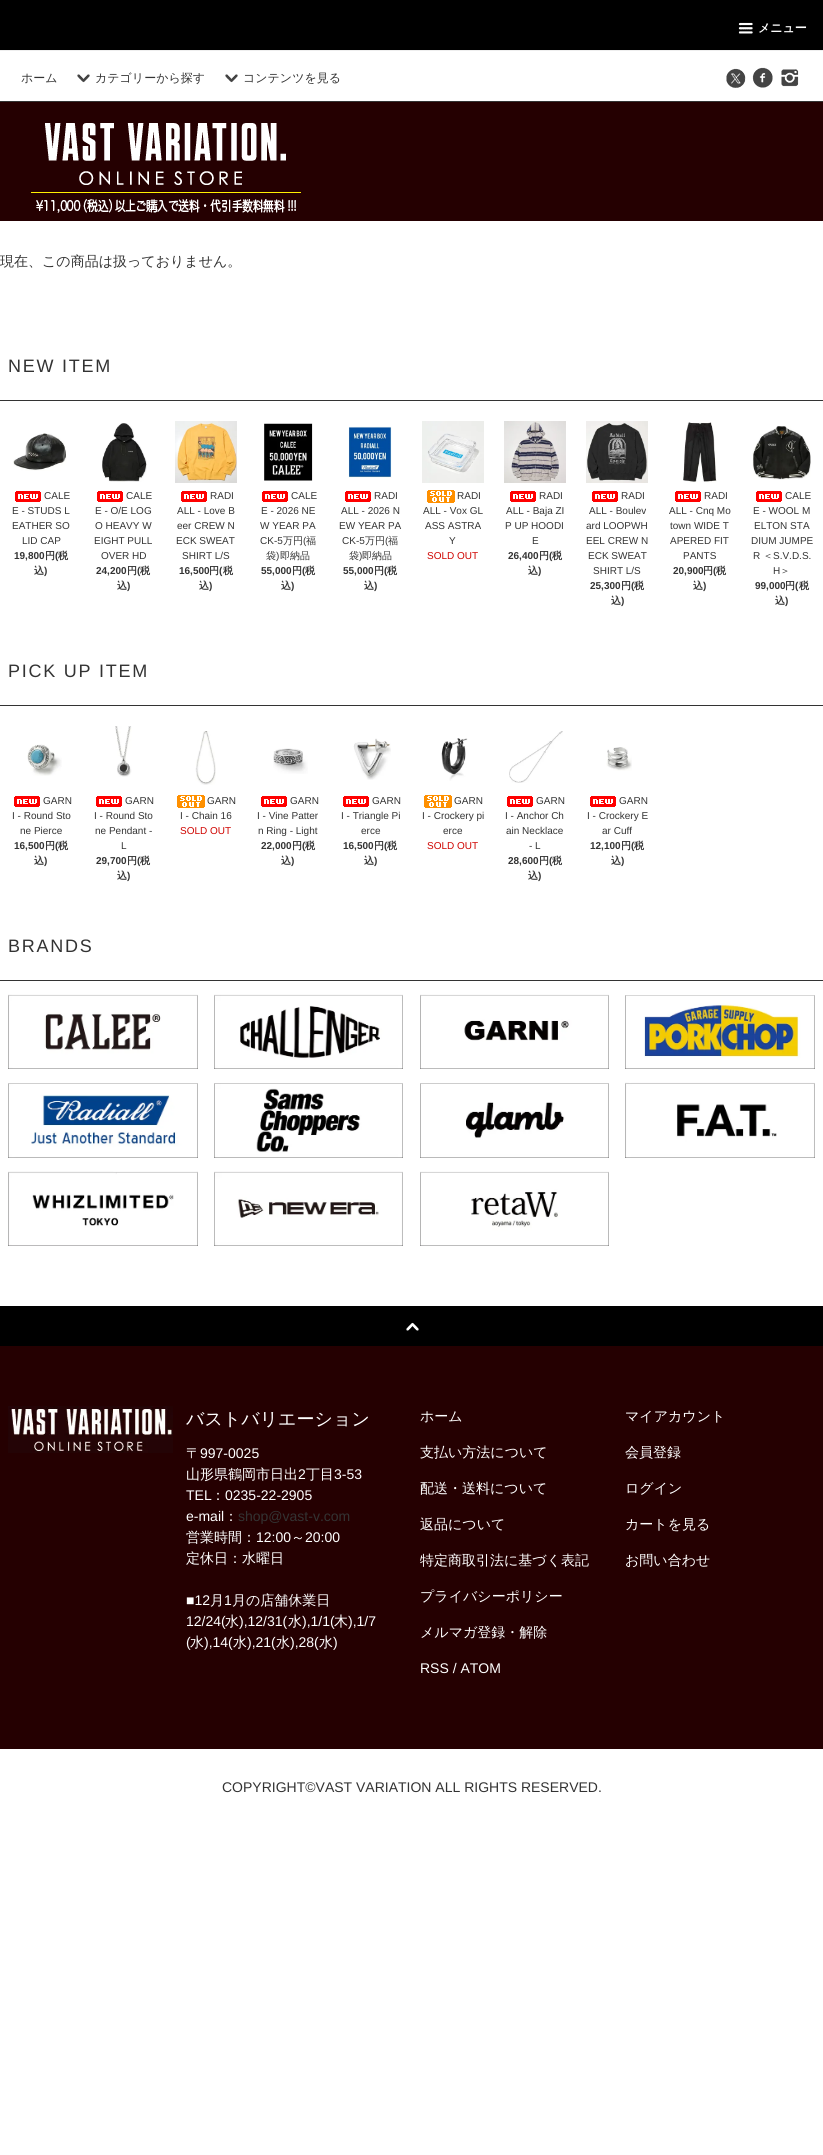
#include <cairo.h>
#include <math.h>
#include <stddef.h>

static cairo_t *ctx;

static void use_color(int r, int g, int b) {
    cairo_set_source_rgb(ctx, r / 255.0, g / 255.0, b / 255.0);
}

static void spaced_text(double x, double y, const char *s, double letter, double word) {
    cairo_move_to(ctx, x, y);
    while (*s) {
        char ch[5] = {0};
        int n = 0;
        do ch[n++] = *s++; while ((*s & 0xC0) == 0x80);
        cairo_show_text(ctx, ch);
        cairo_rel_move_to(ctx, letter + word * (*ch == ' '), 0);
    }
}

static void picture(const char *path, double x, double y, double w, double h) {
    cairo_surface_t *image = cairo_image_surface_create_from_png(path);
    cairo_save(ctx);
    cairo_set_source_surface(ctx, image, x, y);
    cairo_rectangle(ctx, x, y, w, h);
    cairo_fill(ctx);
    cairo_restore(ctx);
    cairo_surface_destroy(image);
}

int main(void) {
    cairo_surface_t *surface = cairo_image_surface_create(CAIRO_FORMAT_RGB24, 823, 2155);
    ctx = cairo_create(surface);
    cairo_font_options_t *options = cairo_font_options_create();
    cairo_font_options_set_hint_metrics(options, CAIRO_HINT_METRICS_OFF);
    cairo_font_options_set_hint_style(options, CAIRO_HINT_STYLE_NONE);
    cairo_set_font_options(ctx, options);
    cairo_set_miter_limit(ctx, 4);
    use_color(255, 255, 255);
    cairo_paint(ctx);
    use_color(37, 0, 1);
    cairo_rectangle(ctx, 0, 102, 823, 119);
    cairo_fill(ctx);
    use_color(0, 0, 0);
    cairo_rectangle(ctx, 0, 0, 823, 50);
    cairo_fill(ctx);
    use_color(238, 238, 238);
    cairo_rectangle(ctx, 0, 50, 823, 1);
    cairo_fill(ctx);
    picture("img1.png", 738, 22, 15, 12);
    cairo_select_font_face(ctx, "WenQuanYi Zen Hei", CAIRO_FONT_SLANT_NORMAL, CAIRO_FONT_WEIGHT_BOLD);
    cairo_set_font_size(ctx, 12);
    use_color(255, 255, 255);
    cairo_move_to(ctx, 758, 32);
    cairo_show_text(ctx, "メニュー");
    use_color(51, 51, 51);
    cairo_rectangle(ctx, 0, 101, 823, 1);
    cairo_fill(ctx);
    cairo_select_font_face(ctx, "WenQuanYi Zen Hei Medium", CAIRO_FONT_SLANT_NORMAL, CAIRO_FONT_WEIGHT_NORMAL);
    cairo_move_to(ctx, 21, 82);
    cairo_show_text(ctx, "ホーム");
    picture("img2.png", 77, 74, 13, 9);
    cairo_move_to(ctx, 95, 82);
    cairo_show_text(ctx, "カテゴリーから探す");
    picture("img2.png", 225, 74, 13, 9);
    cairo_move_to(ctx, 243, 82);
    cairo_show_text(ctx, "コンテンツを見る");
    picture("img3.png", 726, 68, 20, 20);
    picture("img4.png", 752, 67, 21, 21);
    picture("img5.png", 781, 69, 18, 18);
    picture("img6.png", 31, 123, 270, 90);
    cairo_set_font_size(ctx, 14);
    cairo_move_to(ctx, 0, 266);
    cairo_show_text(ctx, "現在、この商品は扱っておりません。");
    cairo_rectangle(ctx, 0, 400, 823, 1);
    cairo_fill(ctx);
    cairo_select_font_face(ctx, "Liberation Sans", CAIRO_FONT_SLANT_NORMAL, CAIRO_FONT_WEIGHT_NORMAL);
    cairo_set_font_size(ctx, 18);
    spaced_text(8, 372, "NEW ITEM", 1.75, 0);
    picture("img7.png", 13, 433, 54, 38);
    picture("img8.png", 15, 491, 26, 11);
    cairo_set_font_size(ctx, 10);
    cairo_move_to(ctx, 44, 499);
    cairo_show_text(ctx, "CALE");
    cairo_move_to(ctx, 12, 514);
    cairo_show_text(ctx, "E - STUDS L");
    cairo_move_to(ctx, 12, 529);
    cairo_show_text(ctx, "EATHER SO");
    cairo_move_to(ctx, 22, 544);
    cairo_show_text(ctx, "LID CAP");
    cairo_select_font_face(ctx, "Liberation Sans", CAIRO_FONT_SLANT_NORMAL, CAIRO_FONT_WEIGHT_BOLD);
    cairo_move_to(ctx, 14, 559);
    cairo_show_text(ctx, "19,800");
    cairo_select_font_face(ctx, "WenQuanYi Zen Hei", CAIRO_FONT_SLANT_NORMAL, CAIRO_FONT_WEIGHT_BOLD);
    cairo_move_to(ctx, 45, 559);
    cairo_show_text(ctx, "円");
    cairo_select_font_face(ctx, "Liberation Sans", CAIRO_FONT_SLANT_NORMAL, CAIRO_FONT_WEIGHT_BOLD);
    cairo_move_to(ctx, 55, 559);
    cairo_show_text(ctx, "(");
    cairo_select_font_face(ctx, "WenQuanYi Zen Hei", CAIRO_FONT_SLANT_NORMAL, CAIRO_FONT_WEIGHT_BOLD);
    cairo_move_to(ctx, 58, 559);
    cairo_show_text(ctx, "税");
    cairo_move_to(ctx, 34, 574);
    cairo_show_text(ctx, "込");
    cairo_select_font_face(ctx, "Liberation Sans", CAIRO_FONT_SLANT_NORMAL, CAIRO_FONT_WEIGHT_BOLD);
    cairo_move_to(ctx, 44, 574);
    cairo_show_text(ctx, ")");
    picture("img9.png", 102, 423, 45, 59);
    picture("img8.png", 97, 491, 26, 11);
    cairo_select_font_face(ctx, "Liberation Sans", CAIRO_FONT_SLANT_NORMAL, CAIRO_FONT_WEIGHT_NORMAL);
    cairo_move_to(ctx, 126, 499);
    cairo_show_text(ctx, "CALE");
    cairo_move_to(ctx, 95, 514);
    cairo_show_text(ctx, "E - O/E LOG");
    cairo_move_to(ctx, 95, 529);
    cairo_show_text(ctx, "O HEAVY W");
    cairo_move_to(ctx, 94, 544);
    cairo_show_text(ctx, "EIGHT PULL");
    cairo_move_to(ctx, 101, 559);
    cairo_show_text(ctx, "OVER HD");
    cairo_select_font_face(ctx, "Liberation Sans", CAIRO_FONT_SLANT_NORMAL, CAIRO_FONT_WEIGHT_BOLD);
    cairo_move_to(ctx, 96, 574);
    cairo_show_text(ctx, "24,200");
    cairo_select_font_face(ctx, "WenQuanYi Zen Hei", CAIRO_FONT_SLANT_NORMAL, CAIRO_FONT_WEIGHT_BOLD);
    cairo_move_to(ctx, 127, 574);
    cairo_show_text(ctx, "円");
    cairo_select_font_face(ctx, "Liberation Sans", CAIRO_FONT_SLANT_NORMAL, CAIRO_FONT_WEIGHT_BOLD);
    cairo_move_to(ctx, 137, 574);
    cairo_show_text(ctx, "(");
    cairo_select_font_face(ctx, "WenQuanYi Zen Hei", CAIRO_FONT_SLANT_NORMAL, CAIRO_FONT_WEIGHT_BOLD);
    cairo_move_to(ctx, 140, 574);
    cairo_show_text(ctx, "税");
    cairo_move_to(ctx, 117, 589);
    cairo_show_text(ctx, "込");
    cairo_select_font_face(ctx, "Liberation Sans", CAIRO_FONT_SLANT_NORMAL, CAIRO_FONT_WEIGHT_BOLD);
    cairo_move_to(ctx, 127, 589);
    cairo_show_text(ctx, ")");
    picture("img10.png", 175, 421, 62, 62);
    picture("img8.png", 181, 491, 26, 11);
    cairo_select_font_face(ctx, "Liberation Sans", CAIRO_FONT_SLANT_NORMAL, CAIRO_FONT_WEIGHT_NORMAL);
    cairo_move_to(ctx, 210, 499);
    cairo_show_text(ctx, "RADI");
    cairo_move_to(ctx, 177, 514);
    cairo_show_text(ctx, "ALL - Love B");
    cairo_move_to(ctx, 177, 529);
    cairo_show_text(ctx, "eer CREW N");
    cairo_move_to(ctx, 176, 544);
    cairo_show_text(ctx, "ECK SWEAT");
    cairo_move_to(ctx, 182, 559);
    cairo_show_text(ctx, "SHIRT L/S");
    cairo_select_font_face(ctx, "Liberation Sans", CAIRO_FONT_SLANT_NORMAL, CAIRO_FONT_WEIGHT_BOLD);
    cairo_move_to(ctx, 179, 574);
    cairo_show_text(ctx, "16,500");
    cairo_select_font_face(ctx, "WenQuanYi Zen Hei", CAIRO_FONT_SLANT_NORMAL, CAIRO_FONT_WEIGHT_BOLD);
    cairo_move_to(ctx, 209, 574);
    cairo_show_text(ctx, "円");
    cairo_select_font_face(ctx, "Liberation Sans", CAIRO_FONT_SLANT_NORMAL, CAIRO_FONT_WEIGHT_BOLD);
    cairo_move_to(ctx, 219, 574);
    cairo_show_text(ctx, "(");
    cairo_select_font_face(ctx, "WenQuanYi Zen Hei", CAIRO_FONT_SLANT_NORMAL, CAIRO_FONT_WEIGHT_BOLD);
    cairo_move_to(ctx, 223, 574);
    cairo_show_text(ctx, "税");
    cairo_move_to(ctx, 199, 589);
    cairo_show_text(ctx, "込");
    cairo_select_font_face(ctx, "Liberation Sans", CAIRO_FONT_SLANT_NORMAL, CAIRO_FONT_WEIGHT_BOLD);
    cairo_move_to(ctx, 209, 589);
    cairo_show_text(ctx, ")");
    picture("img11.png", 264, 423, 49, 58);
    picture("img8.png", 262, 491, 26, 11);
    cairo_select_font_face(ctx, "Liberation Sans", CAIRO_FONT_SLANT_NORMAL, CAIRO_FONT_WEIGHT_NORMAL);
    cairo_move_to(ctx, 291, 499);
    cairo_show_text(ctx, "CALE");
    cairo_move_to(ctx, 261, 514);
    cairo_show_text(ctx, "E - 2026 NE");
    cairo_move_to(ctx, 260, 529);
    cairo_show_text(ctx, "W YEAR PA");
    cairo_move_to(ctx, 260, 544);
    cairo_show_text(ctx, "CK-5");
    cairo_select_font_face(ctx, "WenQuanYi Zen Hei Medium", CAIRO_FONT_SLANT_NORMAL, CAIRO_FONT_WEIGHT_NORMAL);
    cairo_move_to(ctx, 283, 544);
    cairo_show_text(ctx, "万円");
    cairo_select_font_face(ctx, "Liberation Sans", CAIRO_FONT_SLANT_NORMAL, CAIRO_FONT_WEIGHT_NORMAL);
    cairo_move_to(ctx, 303, 544);
    cairo_show_text(ctx, "(");
    cairo_select_font_face(ctx, "WenQuanYi Zen Hei Medium", CAIRO_FONT_SLANT_NORMAL, CAIRO_FONT_WEIGHT_NORMAL);
    cairo_move_to(ctx, 306, 544);
    cairo_show_text(ctx, "福");
    cairo_move_to(ctx, 266, 559);
    cairo_show_text(ctx, "袋");
    cairo_select_font_face(ctx, "Liberation Sans", CAIRO_FONT_SLANT_NORMAL, CAIRO_FONT_WEIGHT_NORMAL);
    cairo_move_to(ctx, 276, 559);
    cairo_show_text(ctx, ")");
    cairo_select_font_face(ctx, "WenQuanYi Zen Hei Medium", CAIRO_FONT_SLANT_NORMAL, CAIRO_FONT_WEIGHT_NORMAL);
    cairo_move_to(ctx, 280, 559);
    cairo_show_text(ctx, "即納品");
    cairo_select_font_face(ctx, "Liberation Sans", CAIRO_FONT_SLANT_NORMAL, CAIRO_FONT_WEIGHT_BOLD);
    cairo_move_to(ctx, 261, 574);
    cairo_show_text(ctx, "55,000");
    cairo_select_font_face(ctx, "WenQuanYi Zen Hei", CAIRO_FONT_SLANT_NORMAL, CAIRO_FONT_WEIGHT_BOLD);
    cairo_move_to(ctx, 292, 574);
    cairo_show_text(ctx, "円");
    cairo_select_font_face(ctx, "Liberation Sans", CAIRO_FONT_SLANT_NORMAL, CAIRO_FONT_WEIGHT_BOLD);
    cairo_move_to(ctx, 302, 574);
    cairo_show_text(ctx, "(");
    cairo_select_font_face(ctx, "WenQuanYi Zen Hei", CAIRO_FONT_SLANT_NORMAL, CAIRO_FONT_WEIGHT_BOLD);
    cairo_move_to(ctx, 305, 574);
    cairo_show_text(ctx, "税");
    cairo_move_to(ctx, 281, 589);
    cairo_show_text(ctx, "込");
    cairo_select_font_face(ctx, "Liberation Sans", CAIRO_FONT_SLANT_NORMAL, CAIRO_FONT_WEIGHT_BOLD);
    cairo_move_to(ctx, 291, 589);
    cairo_show_text(ctx, ")");
    picture("img12.png", 348, 426, 44, 52);
    picture("img8.png", 345, 491, 26, 11);
    cairo_select_font_face(ctx, "Liberation Sans", CAIRO_FONT_SLANT_NORMAL, CAIRO_FONT_WEIGHT_NORMAL);
    cairo_move_to(ctx, 374, 499);
    cairo_show_text(ctx, "RADI");
    cairo_move_to(ctx, 341, 514);
    cairo_show_text(ctx, "ALL - 2026 N");
    cairo_move_to(ctx, 339, 529);
    cairo_show_text(ctx, "EW YEAR PA");
    cairo_move_to(ctx, 342, 544);
    cairo_show_text(ctx, "CK-5");
    cairo_select_font_face(ctx, "WenQuanYi Zen Hei Medium", CAIRO_FONT_SLANT_NORMAL, CAIRO_FONT_WEIGHT_NORMAL);
    cairo_move_to(ctx, 365, 544);
    cairo_show_text(ctx, "万円");
    cairo_select_font_face(ctx, "Liberation Sans", CAIRO_FONT_SLANT_NORMAL, CAIRO_FONT_WEIGHT_NORMAL);
    cairo_move_to(ctx, 385, 544);
    cairo_show_text(ctx, "(");
    cairo_select_font_face(ctx, "WenQuanYi Zen Hei Medium", CAIRO_FONT_SLANT_NORMAL, CAIRO_FONT_WEIGHT_NORMAL);
    cairo_move_to(ctx, 388, 544);
    cairo_show_text(ctx, "福");
    cairo_move_to(ctx, 349, 559);
    cairo_show_text(ctx, "袋");
    cairo_select_font_face(ctx, "Liberation Sans", CAIRO_FONT_SLANT_NORMAL, CAIRO_FONT_WEIGHT_NORMAL);
    cairo_move_to(ctx, 359, 559);
    cairo_show_text(ctx, ")");
    cairo_select_font_face(ctx, "WenQuanYi Zen Hei Medium", CAIRO_FONT_SLANT_NORMAL, CAIRO_FONT_WEIGHT_NORMAL);
    cairo_move_to(ctx, 362, 559);
    cairo_show_text(ctx, "即納品");
    cairo_select_font_face(ctx, "Liberation Sans", CAIRO_FONT_SLANT_NORMAL, CAIRO_FONT_WEIGHT_BOLD);
    cairo_move_to(ctx, 343, 574);
    cairo_show_text(ctx, "55,000");
    cairo_select_font_face(ctx, "WenQuanYi Zen Hei", CAIRO_FONT_SLANT_NORMAL, CAIRO_FONT_WEIGHT_BOLD);
    cairo_move_to(ctx, 374, 574);
    cairo_show_text(ctx, "円");
    cairo_select_font_face(ctx, "Liberation Sans", CAIRO_FONT_SLANT_NORMAL, CAIRO_FONT_WEIGHT_BOLD);
    cairo_move_to(ctx, 384, 574);
    cairo_show_text(ctx, "(");
    cairo_select_font_face(ctx, "WenQuanYi Zen Hei", CAIRO_FONT_SLANT_NORMAL, CAIRO_FONT_WEIGHT_BOLD);
    cairo_move_to(ctx, 387, 574);
    cairo_show_text(ctx, "税");
    cairo_move_to(ctx, 364, 589);
    cairo_show_text(ctx, "込");
    cairo_select_font_face(ctx, "Liberation Sans", CAIRO_FONT_SLANT_NORMAL, CAIRO_FONT_WEIGHT_BOLD);
    cairo_move_to(ctx, 374, 589);
    cairo_show_text(ctx, ")");
    picture("img13.png", 422, 421, 62, 62);
    picture("img14.png", 427, 490, 28, 13);
    cairo_select_font_face(ctx, "Liberation Sans", CAIRO_FONT_SLANT_NORMAL, CAIRO_FONT_WEIGHT_NORMAL);
    cairo_move_to(ctx, 457, 499);
    cairo_show_text(ctx, "RADI");
    cairo_move_to(ctx, 423, 514);
    cairo_show_text(ctx, "ALL - Vox GL");
    cairo_move_to(ctx, 425, 529);
    cairo_show_text(ctx, "ASS ASTRA");
    cairo_move_to(ctx, 449, 544);
    cairo_show_text(ctx, "Y");
    use_color(207, 4, 0);
    cairo_move_to(ctx, 427, 559);
    cairo_show_text(ctx, "SOLD OUT");
    picture("img15.png", 504, 421, 62, 62);
    picture("img8.png", 510, 491, 26, 11);
    use_color(51, 51, 51);
    cairo_move_to(ctx, 539, 499);
    cairo_show_text(ctx, "RADI");
    cairo_move_to(ctx, 506, 514);
    cairo_show_text(ctx, "ALL - Baja ZI");
    cairo_move_to(ctx, 505, 529);
    cairo_show_text(ctx, "P UP HOODI");
    cairo_move_to(ctx, 532, 544);
    cairo_show_text(ctx, "E");
    cairo_select_font_face(ctx, "Liberation Sans", CAIRO_FONT_SLANT_NORMAL, CAIRO_FONT_WEIGHT_BOLD);
    cairo_move_to(ctx, 508, 559);
    cairo_show_text(ctx, "26,400");
    cairo_select_font_face(ctx, "WenQuanYi Zen Hei", CAIRO_FONT_SLANT_NORMAL, CAIRO_FONT_WEIGHT_BOLD);
    cairo_move_to(ctx, 539, 559);
    cairo_show_text(ctx, "円");
    cairo_select_font_face(ctx, "Liberation Sans", CAIRO_FONT_SLANT_NORMAL, CAIRO_FONT_WEIGHT_BOLD);
    cairo_move_to(ctx, 549, 559);
    cairo_show_text(ctx, "(");
    cairo_select_font_face(ctx, "WenQuanYi Zen Hei", CAIRO_FONT_SLANT_NORMAL, CAIRO_FONT_WEIGHT_BOLD);
    cairo_move_to(ctx, 552, 559);
    cairo_show_text(ctx, "税");
    cairo_move_to(ctx, 528, 574);
    cairo_show_text(ctx, "込");
    cairo_select_font_face(ctx, "Liberation Sans", CAIRO_FONT_SLANT_NORMAL, CAIRO_FONT_WEIGHT_BOLD);
    cairo_move_to(ctx, 538, 574);
    cairo_show_text(ctx, ")");
    picture("img16.png", 586, 421, 62, 62);
    picture("img8.png", 592, 491, 26, 11);
    cairo_select_font_face(ctx, "Liberation Sans", CAIRO_FONT_SLANT_NORMAL, CAIRO_FONT_WEIGHT_NORMAL);
    cairo_move_to(ctx, 621, 499);
    cairo_show_text(ctx, "RADI");
    cairo_move_to(ctx, 589, 514);
    cairo_show_text(ctx, "ALL - Boulev");
    cairo_move_to(ctx, 586, 529);
    cairo_show_text(ctx, "ard LOOPWH");
    cairo_move_to(ctx, 586, 544);
    cairo_show_text(ctx, "EEL CREW N");
    cairo_move_to(ctx, 588, 559);
    cairo_show_text(ctx, "ECK SWEAT");
    cairo_move_to(ctx, 593, 574);
    cairo_show_text(ctx, "SHIRT L/S");
    cairo_select_font_face(ctx, "Liberation Sans", CAIRO_FONT_SLANT_NORMAL, CAIRO_FONT_WEIGHT_BOLD);
    cairo_move_to(ctx, 590, 589);
    cairo_show_text(ctx, "25,300");
    cairo_select_font_face(ctx, "WenQuanYi Zen Hei", CAIRO_FONT_SLANT_NORMAL, CAIRO_FONT_WEIGHT_BOLD);
    cairo_move_to(ctx, 621, 589);
    cairo_show_text(ctx, "円");
    cairo_select_font_face(ctx, "Liberation Sans", CAIRO_FONT_SLANT_NORMAL, CAIRO_FONT_WEIGHT_BOLD);
    cairo_move_to(ctx, 631, 589);
    cairo_show_text(ctx, "(");
    cairo_select_font_face(ctx, "WenQuanYi Zen Hei", CAIRO_FONT_SLANT_NORMAL, CAIRO_FONT_WEIGHT_BOLD);
    cairo_move_to(ctx, 634, 589);
    cairo_show_text(ctx, "税");
    cairo_move_to(ctx, 611, 604);
    cairo_show_text(ctx, "込");
    cairo_select_font_face(ctx, "Liberation Sans", CAIRO_FONT_SLANT_NORMAL, CAIRO_FONT_WEIGHT_BOLD);
    cairo_move_to(ctx, 621, 604);
    cairo_show_text(ctx, ")");
    picture("img17.png", 683, 422, 34, 61);
    picture("img8.png", 675, 491, 26, 11);
    cairo_select_font_face(ctx, "Liberation Sans", CAIRO_FONT_SLANT_NORMAL, CAIRO_FONT_WEIGHT_NORMAL);
    cairo_move_to(ctx, 704, 499);
    cairo_show_text(ctx, "RADI");
    cairo_move_to(ctx, 669, 514);
    cairo_show_text(ctx, "ALL - Cnq Mo");
    cairo_move_to(ctx, 670, 529);
    cairo_show_text(ctx, "town WIDE T");
    cairo_move_to(ctx, 670, 544);
    cairo_show_text(ctx, "APERED FIT");
    cairo_move_to(ctx, 683, 559);
    cairo_show_text(ctx, "PANTS");
    cairo_select_font_face(ctx, "Liberation Sans", CAIRO_FONT_SLANT_NORMAL, CAIRO_FONT_WEIGHT_BOLD);
    cairo_move_to(ctx, 673, 574);
    cairo_show_text(ctx, "20,900");
    cairo_select_font_face(ctx, "WenQuanYi Zen Hei", CAIRO_FONT_SLANT_NORMAL, CAIRO_FONT_WEIGHT_BOLD);
    cairo_move_to(ctx, 703, 574);
    cairo_show_text(ctx, "円");
    cairo_select_font_face(ctx, "Liberation Sans", CAIRO_FONT_SLANT_NORMAL, CAIRO_FONT_WEIGHT_BOLD);
    cairo_move_to(ctx, 713, 574);
    cairo_show_text(ctx, "(");
    cairo_select_font_face(ctx, "WenQuanYi Zen Hei", CAIRO_FONT_SLANT_NORMAL, CAIRO_FONT_WEIGHT_BOLD);
    cairo_move_to(ctx, 716, 574);
    cairo_show_text(ctx, "税");
    cairo_move_to(ctx, 693, 589);
    cairo_show_text(ctx, "込");
    cairo_select_font_face(ctx, "Liberation Sans", CAIRO_FONT_SLANT_NORMAL, CAIRO_FONT_WEIGHT_BOLD);
    cairo_move_to(ctx, 703, 589);
    cairo_show_text(ctx, ")");
    picture("img18.png", 752, 426, 59, 54);
    picture("img8.png", 756, 491, 26, 11);
    cairo_select_font_face(ctx, "Liberation Sans", CAIRO_FONT_SLANT_NORMAL, CAIRO_FONT_WEIGHT_NORMAL);
    cairo_move_to(ctx, 785, 499);
    cairo_show_text(ctx, "CALE");
    cairo_move_to(ctx, 753, 514);
    cairo_show_text(ctx, "E - WOOL M");
    cairo_move_to(ctx, 754, 529);
    cairo_show_text(ctx, "ELTON STA");
    cairo_move_to(ctx, 751, 544);
    cairo_show_text(ctx, "DIUM JUMPE");
    cairo_move_to(ctx, 753, 559);
    cairo_show_text(ctx, "R");
    cairo_select_font_face(ctx, "WenQuanYi Zen Hei Medium", CAIRO_FONT_SLANT_NORMAL, CAIRO_FONT_WEIGHT_NORMAL);
    cairo_move_to(ctx, 763, 559);
    cairo_show_text(ctx, "＜");
    cairo_select_font_face(ctx, "Liberation Sans", CAIRO_FONT_SLANT_NORMAL, CAIRO_FONT_WEIGHT_NORMAL);
    cairo_move_to(ctx, 773, 559);
    cairo_show_text(ctx, "S.V.D.S.");
    cairo_move_to(ctx, 773, 574);
    cairo_show_text(ctx, "H");
    cairo_select_font_face(ctx, "WenQuanYi Zen Hei Medium", CAIRO_FONT_SLANT_NORMAL, CAIRO_FONT_WEIGHT_NORMAL);
    cairo_move_to(ctx, 780, 574);
    cairo_show_text(ctx, "＞");
    cairo_select_font_face(ctx, "Liberation Sans", CAIRO_FONT_SLANT_NORMAL, CAIRO_FONT_WEIGHT_BOLD);
    cairo_move_to(ctx, 755, 589);
    cairo_show_text(ctx, "99,000");
    cairo_select_font_face(ctx, "WenQuanYi Zen Hei", CAIRO_FONT_SLANT_NORMAL, CAIRO_FONT_WEIGHT_BOLD);
    cairo_move_to(ctx, 785, 589);
    cairo_show_text(ctx, "円");
    cairo_select_font_face(ctx, "Liberation Sans", CAIRO_FONT_SLANT_NORMAL, CAIRO_FONT_WEIGHT_BOLD);
    cairo_move_to(ctx, 795, 589);
    cairo_show_text(ctx, "(");
    cairo_select_font_face(ctx, "WenQuanYi Zen Hei", CAIRO_FONT_SLANT_NORMAL, CAIRO_FONT_WEIGHT_BOLD);
    cairo_move_to(ctx, 799, 589);
    cairo_show_text(ctx, "税");
    cairo_move_to(ctx, 775, 604);
    cairo_show_text(ctx, "込");
    cairo_select_font_face(ctx, "Liberation Sans", CAIRO_FONT_SLANT_NORMAL, CAIRO_FONT_WEIGHT_BOLD);
    cairo_move_to(ctx, 785, 604);
    cairo_show_text(ctx, ")");
    cairo_rectangle(ctx, 0, 705, 823, 1);
    cairo_fill(ctx);
    cairo_select_font_face(ctx, "Liberation Sans", CAIRO_FONT_SLANT_NORMAL, CAIRO_FONT_WEIGHT_NORMAL);
    cairo_set_font_size(ctx, 18);
    spaced_text(8, 677, "PICK UP ITEM", 1.75, 0);
    picture("img19.png", 27, 744, 35, 32);
    picture("img8.png", 14, 796, 26, 11);
    cairo_set_font_size(ctx, 10);
    cairo_move_to(ctx, 43, 804);
    cairo_show_text(ctx, "GARN");
    cairo_move_to(ctx, 12, 819);
    cairo_show_text(ctx, "I - Round Sto");
    cairo_move_to(ctx, 20, 834);
    cairo_show_text(ctx, "ne Pierce");
    cairo_select_font_face(ctx, "Liberation Sans", CAIRO_FONT_SLANT_NORMAL, CAIRO_FONT_WEIGHT_BOLD);
    cairo_move_to(ctx, 14, 849);
    cairo_show_text(ctx, "16,500");
    cairo_select_font_face(ctx, "WenQuanYi Zen Hei", CAIRO_FONT_SLANT_NORMAL, CAIRO_FONT_WEIGHT_BOLD);
    cairo_move_to(ctx, 45, 849);
    cairo_show_text(ctx, "円");
    cairo_select_font_face(ctx, "Liberation Sans", CAIRO_FONT_SLANT_NORMAL, CAIRO_FONT_WEIGHT_BOLD);
    cairo_move_to(ctx, 55, 849);
    cairo_show_text(ctx, "(");
    cairo_select_font_face(ctx, "WenQuanYi Zen Hei", CAIRO_FONT_SLANT_NORMAL, CAIRO_FONT_WEIGHT_BOLD);
    cairo_move_to(ctx, 58, 849);
    cairo_show_text(ctx, "税");
    cairo_move_to(ctx, 34, 864);
    cairo_show_text(ctx, "込");
    cairo_select_font_face(ctx, "Liberation Sans", CAIRO_FONT_SLANT_NORMAL, CAIRO_FONT_WEIGHT_BOLD);
    cairo_move_to(ctx, 44, 864);
    cairo_show_text(ctx, ")");
    picture("img20.png", 115, 726, 17, 51);
    picture("img8.png", 96, 796, 26, 11);
    cairo_select_font_face(ctx, "Liberation Sans", CAIRO_FONT_SLANT_NORMAL, CAIRO_FONT_WEIGHT_NORMAL);
    cairo_move_to(ctx, 125, 804);
    cairo_show_text(ctx, "GARN");
    cairo_move_to(ctx, 94, 819);
    cairo_show_text(ctx, "I - Round Sto");
    cairo_move_to(ctx, 95, 834);
    cairo_show_text(ctx, "ne Pendant -");
    cairo_move_to(ctx, 121, 849);
    cairo_show_text(ctx, "L");
    cairo_select_font_face(ctx, "Liberation Sans", CAIRO_FONT_SLANT_NORMAL, CAIRO_FONT_WEIGHT_BOLD);
    cairo_move_to(ctx, 96, 864);
    cairo_show_text(ctx, "29,700");
    cairo_select_font_face(ctx, "WenQuanYi Zen Hei", CAIRO_FONT_SLANT_NORMAL, CAIRO_FONT_WEIGHT_BOLD);
    cairo_move_to(ctx, 127, 864);
    cairo_show_text(ctx, "円");
    cairo_select_font_face(ctx, "Liberation Sans", CAIRO_FONT_SLANT_NORMAL, CAIRO_FONT_WEIGHT_BOLD);
    cairo_move_to(ctx, 137, 864);
    cairo_show_text(ctx, "(");
    cairo_select_font_face(ctx, "WenQuanYi Zen Hei", CAIRO_FONT_SLANT_NORMAL, CAIRO_FONT_WEIGHT_BOLD);
    cairo_move_to(ctx, 140, 864);
    cairo_show_text(ctx, "税");
    cairo_move_to(ctx, 117, 879);
    cairo_show_text(ctx, "込");
    cairo_select_font_face(ctx, "Liberation Sans", CAIRO_FONT_SLANT_NORMAL, CAIRO_FONT_WEIGHT_BOLD);
    cairo_move_to(ctx, 127, 879);
    cairo_show_text(ctx, ")");
    picture("img21.png", 195, 731, 21, 54);
    picture("img14.png", 177, 795, 28, 13);
    cairo_select_font_face(ctx, "Liberation Sans", CAIRO_FONT_SLANT_NORMAL, CAIRO_FONT_WEIGHT_NORMAL);
    cairo_move_to(ctx, 207, 804);
    cairo_show_text(ctx, "GARN");
    cairo_move_to(ctx, 180, 819);
    cairo_show_text(ctx, "I - Chain 16");
    use_color(207, 4, 0);
    cairo_move_to(ctx, 180, 834);
    cairo_show_text(ctx, "SOLD OUT");
    picture("img22.png", 273, 748, 35, 26);
    picture("img8.png", 261, 796, 26, 11);
    use_color(51, 51, 51);
    cairo_move_to(ctx, 290, 804);
    cairo_show_text(ctx, "GARN");
    cairo_move_to(ctx, 257, 819);
    cairo_show_text(ctx, "I - Vine Patter");
    cairo_move_to(ctx, 258, 834);
    cairo_show_text(ctx, "n Ring - Light");
    cairo_select_font_face(ctx, "Liberation Sans", CAIRO_FONT_SLANT_NORMAL, CAIRO_FONT_WEIGHT_BOLD);
    cairo_move_to(ctx, 261, 849);
    cairo_show_text(ctx, "22,000");
    cairo_select_font_face(ctx, "WenQuanYi Zen Hei", CAIRO_FONT_SLANT_NORMAL, CAIRO_FONT_WEIGHT_BOLD);
    cairo_move_to(ctx, 292, 849);
    cairo_show_text(ctx, "円");
    cairo_select_font_face(ctx, "Liberation Sans", CAIRO_FONT_SLANT_NORMAL, CAIRO_FONT_WEIGHT_BOLD);
    cairo_move_to(ctx, 302, 849);
    cairo_show_text(ctx, "(");
    cairo_select_font_face(ctx, "WenQuanYi Zen Hei", CAIRO_FONT_SLANT_NORMAL, CAIRO_FONT_WEIGHT_BOLD);
    cairo_move_to(ctx, 305, 849);
    cairo_show_text(ctx, "税");
    cairo_move_to(ctx, 281, 864);
    cairo_show_text(ctx, "込");
    cairo_select_font_face(ctx, "Liberation Sans", CAIRO_FONT_SLANT_NORMAL, CAIRO_FONT_WEIGHT_BOLD);
    cairo_move_to(ctx, 291, 864);
    cairo_show_text(ctx, ")");
    picture("img23.png", 353, 738, 38, 42);
    picture("img8.png", 343, 796, 26, 11);
    cairo_select_font_face(ctx, "Liberation Sans", CAIRO_FONT_SLANT_NORMAL, CAIRO_FONT_WEIGHT_NORMAL);
    cairo_move_to(ctx, 372, 804);
    cairo_show_text(ctx, "GARN");
    cairo_move_to(ctx, 341, 819);
    cairo_show_text(ctx, "I - Triangle Pi");
    cairo_move_to(ctx, 361, 834);
    cairo_show_text(ctx, "erce");
    cairo_select_font_face(ctx, "Liberation Sans", CAIRO_FONT_SLANT_NORMAL, CAIRO_FONT_WEIGHT_BOLD);
    cairo_move_to(ctx, 343, 849);
    cairo_show_text(ctx, "16,500");
    cairo_select_font_face(ctx, "WenQuanYi Zen Hei", CAIRO_FONT_SLANT_NORMAL, CAIRO_FONT_WEIGHT_BOLD);
    cairo_move_to(ctx, 374, 849);
    cairo_show_text(ctx, "円");
    cairo_select_font_face(ctx, "Liberation Sans", CAIRO_FONT_SLANT_NORMAL, CAIRO_FONT_WEIGHT_BOLD);
    cairo_move_to(ctx, 384, 849);
    cairo_show_text(ctx, "(");
    cairo_select_font_face(ctx, "WenQuanYi Zen Hei", CAIRO_FONT_SLANT_NORMAL, CAIRO_FONT_WEIGHT_BOLD);
    cairo_move_to(ctx, 387, 849);
    cairo_show_text(ctx, "税");
    cairo_move_to(ctx, 364, 864);
    cairo_show_text(ctx, "込");
    cairo_select_font_face(ctx, "Liberation Sans", CAIRO_FONT_SLANT_NORMAL, CAIRO_FONT_WEIGHT_BOLD);
    cairo_move_to(ctx, 374, 864);
    cairo_show_text(ctx, ")");
    picture("img24.png", 441, 738, 27, 43);
    picture("img14.png", 424, 795, 28, 13);
    cairo_select_font_face(ctx, "Liberation Sans", CAIRO_FONT_SLANT_NORMAL, CAIRO_FONT_WEIGHT_NORMAL);
    cairo_move_to(ctx, 454, 804);
    cairo_show_text(ctx, "GARN");
    cairo_move_to(ctx, 422, 819);
    cairo_show_text(ctx, "I - Crockery pi");
    cairo_move_to(ctx, 443, 834);
    cairo_show_text(ctx, "erce");
    use_color(207, 4, 0);
    cairo_move_to(ctx, 427, 849);
    cairo_show_text(ctx, "SOLD OUT");
    picture("img25.png", 509, 731, 54, 52);
    picture("img8.png", 507, 796, 26, 11);
    use_color(51, 51, 51);
    cairo_move_to(ctx, 536, 804);
    cairo_show_text(ctx, "GARN");
    cairo_move_to(ctx, 505, 819);
    cairo_show_text(ctx, "I - Anchor Ch");
    cairo_move_to(ctx, 506, 834);
    cairo_show_text(ctx, "ain Necklace");
    cairo_move_to(ctx, 529, 849);
    cairo_show_text(ctx, "- L");
    cairo_select_font_face(ctx, "Liberation Sans", CAIRO_FONT_SLANT_NORMAL, CAIRO_FONT_WEIGHT_BOLD);
    cairo_move_to(ctx, 508, 864);
    cairo_show_text(ctx, "28,600");
    cairo_select_font_face(ctx, "WenQuanYi Zen Hei", CAIRO_FONT_SLANT_NORMAL, CAIRO_FONT_WEIGHT_BOLD);
    cairo_move_to(ctx, 539, 864);
    cairo_show_text(ctx, "円");
    cairo_select_font_face(ctx, "Liberation Sans", CAIRO_FONT_SLANT_NORMAL, CAIRO_FONT_WEIGHT_BOLD);
    cairo_move_to(ctx, 549, 864);
    cairo_show_text(ctx, "(");
    cairo_select_font_face(ctx, "WenQuanYi Zen Hei", CAIRO_FONT_SLANT_NORMAL, CAIRO_FONT_WEIGHT_BOLD);
    cairo_move_to(ctx, 552, 864);
    cairo_show_text(ctx, "税");
    cairo_move_to(ctx, 528, 879);
    cairo_show_text(ctx, "込");
    cairo_select_font_face(ctx, "Liberation Sans", CAIRO_FONT_SLANT_NORMAL, CAIRO_FONT_WEIGHT_BOLD);
    cairo_move_to(ctx, 538, 879);
    cairo_show_text(ctx, ")");
    picture("img26.png", 606, 747, 26, 24);
    picture("img8.png", 590, 796, 26, 11);
    cairo_select_font_face(ctx, "Liberation Sans", CAIRO_FONT_SLANT_NORMAL, CAIRO_FONT_WEIGHT_NORMAL);
    cairo_move_to(ctx, 619, 804);
    cairo_show_text(ctx, "GARN");
    cairo_move_to(ctx, 587, 819);
    cairo_show_text(ctx, "I - Crockery E");
    cairo_move_to(ctx, 602, 834);
    cairo_show_text(ctx, "ar Cuff");
    cairo_select_font_face(ctx, "Liberation Sans", CAIRO_FONT_SLANT_NORMAL, CAIRO_FONT_WEIGHT_BOLD);
    cairo_move_to(ctx, 590, 849);
    cairo_show_text(ctx, "12,100");
    cairo_select_font_face(ctx, "WenQuanYi Zen Hei", CAIRO_FONT_SLANT_NORMAL, CAIRO_FONT_WEIGHT_BOLD);
    cairo_move_to(ctx, 621, 849);
    cairo_show_text(ctx, "円");
    cairo_select_font_face(ctx, "Liberation Sans", CAIRO_FONT_SLANT_NORMAL, CAIRO_FONT_WEIGHT_BOLD);
    cairo_move_to(ctx, 631, 849);
    cairo_show_text(ctx, "(");
    cairo_select_font_face(ctx, "WenQuanYi Zen Hei", CAIRO_FONT_SLANT_NORMAL, CAIRO_FONT_WEIGHT_BOLD);
    cairo_move_to(ctx, 634, 849);
    cairo_show_text(ctx, "税");
    cairo_move_to(ctx, 611, 864);
    cairo_show_text(ctx, "込");
    cairo_select_font_face(ctx, "Liberation Sans", CAIRO_FONT_SLANT_NORMAL, CAIRO_FONT_WEIGHT_BOLD);
    cairo_move_to(ctx, 621, 864);
    cairo_show_text(ctx, ")");
    cairo_rectangle(ctx, 0, 980, 823, 1);
    cairo_fill(ctx);
    cairo_select_font_face(ctx, "Liberation Sans", CAIRO_FONT_SLANT_NORMAL, CAIRO_FONT_WEIGHT_NORMAL);
    cairo_set_font_size(ctx, 18);
    spaced_text(8, 952, "BRANDS", 1.75, 0);
    picture("img27.png", 8, 994, 190, 75);
    picture("img28.png", 214, 994, 189, 75);
    picture("img29.png", 420, 994, 189, 75);
    picture("img30.png", 625, 995, 190, 74);
    picture("img31.png", 8, 1083, 190, 75);
    picture("img32.png", 214, 1083, 189, 75);
    picture("img33.png", 420, 1083, 189, 75);
    picture("img34.png", 625, 1082, 190, 76);
    picture("img35.png", 8, 1171, 190, 75);
    picture("img36.png", 214, 1171, 189, 75);
    picture("img37.png", 420, 1171, 189, 75);
    use_color(0, 0, 0);
    cairo_rectangle(ctx, 0, 1306, 823, 40);
    cairo_fill(ctx);
    picture("img38.png", 406, 1322, 13, 9);
    use_color(37, 0, 1);
    cairo_rectangle(ctx, 0, 1346, 823, 403);
    cairo_fill(ctx);
    picture("img39.png", 8, 1406, 165, 47);
    cairo_select_font_face(ctx, "WenQuanYi Zen Hei Medium", CAIRO_FONT_SLANT_NORMAL, CAIRO_FONT_WEIGHT_NORMAL);
    use_color(255, 255, 255);
    cairo_move_to(ctx, 186, 1425);
    cairo_show_text(ctx, "バストバリエーション");
    cairo_set_font_size(ctx, 14);
    cairo_move_to(ctx, 186, 1458);
    cairo_show_text(ctx, "〒");
    cairo_select_font_face(ctx, "Liberation Sans", CAIRO_FONT_SLANT_NORMAL, CAIRO_FONT_WEIGHT_NORMAL);
    cairo_move_to(ctx, 200, 1458);
    cairo_show_text(ctx, "997-0025");
    cairo_select_font_face(ctx, "WenQuanYi Zen Hei Medium", CAIRO_FONT_SLANT_NORMAL, CAIRO_FONT_WEIGHT_NORMAL);
    cairo_move_to(ctx, 186, 1479);
    cairo_show_text(ctx, "山形県鶴岡市日出");
    cairo_select_font_face(ctx, "Liberation Sans", CAIRO_FONT_SLANT_NORMAL, CAIRO_FONT_WEIGHT_NORMAL);
    cairo_move_to(ctx, 298, 1479);
    cairo_show_text(ctx, "2");
    cairo_select_font_face(ctx, "WenQuanYi Zen Hei Medium", CAIRO_FONT_SLANT_NORMAL, CAIRO_FONT_WEIGHT_NORMAL);
    cairo_move_to(ctx, 306, 1479);
    cairo_show_text(ctx, "丁目");
    cairo_select_font_face(ctx, "Liberation Sans", CAIRO_FONT_SLANT_NORMAL, CAIRO_FONT_WEIGHT_NORMAL);
    cairo_move_to(ctx, 334, 1479);
    cairo_show_text(ctx, "3-53");
    cairo_move_to(ctx, 186, 1500);
    cairo_show_text(ctx, "TEL");
    cairo_select_font_face(ctx, "WenQuanYi Zen Hei Medium", CAIRO_FONT_SLANT_NORMAL, CAIRO_FONT_WEIGHT_NORMAL);
    cairo_move_to(ctx, 211, 1500);
    cairo_show_text(ctx, "：");
    cairo_select_font_face(ctx, "Liberation Sans", CAIRO_FONT_SLANT_NORMAL, CAIRO_FONT_WEIGHT_NORMAL);
    cairo_move_to(ctx, 225, 1500);
    cairo_show_text(ctx, "0235-22-2905");
    cairo_move_to(ctx, 186, 1521);
    cairo_show_text(ctx, "e-mail");
    cairo_select_font_face(ctx, "WenQuanYi Zen Hei Medium", CAIRO_FONT_SLANT_NORMAL, CAIRO_FONT_WEIGHT_NORMAL);
    cairo_move_to(ctx, 224, 1521);
    cairo_show_text(ctx, "：");
    cairo_select_font_face(ctx, "Liberation Sans", CAIRO_FONT_SLANT_NORMAL, CAIRO_FONT_WEIGHT_NORMAL);
    use_color(51, 51, 51);
    cairo_move_to(ctx, 238, 1521);
    cairo_show_text(ctx, "shop@vast-v.com");
    cairo_select_font_face(ctx, "WenQuanYi Zen Hei Medium", CAIRO_FONT_SLANT_NORMAL, CAIRO_FONT_WEIGHT_NORMAL);
    use_color(255, 255, 255);
    cairo_move_to(ctx, 186, 1542);
    cairo_show_text(ctx, "営業時間：");
    cairo_select_font_face(ctx, "Liberation Sans", CAIRO_FONT_SLANT_NORMAL, CAIRO_FONT_WEIGHT_NORMAL);
    cairo_move_to(ctx, 256, 1542);
    cairo_show_text(ctx, "12:00");
    cairo_select_font_face(ctx, "WenQuanYi Zen Hei Medium", CAIRO_FONT_SLANT_NORMAL, CAIRO_FONT_WEIGHT_NORMAL);
    cairo_move_to(ctx, 291, 1542);
    cairo_show_text(ctx, "～");
    cairo_select_font_face(ctx, "Liberation Sans", CAIRO_FONT_SLANT_NORMAL, CAIRO_FONT_WEIGHT_NORMAL);
    cairo_move_to(ctx, 305, 1542);
    cairo_show_text(ctx, "20:00");
    cairo_select_font_face(ctx, "WenQuanYi Zen Hei Medium", CAIRO_FONT_SLANT_NORMAL, CAIRO_FONT_WEIGHT_NORMAL);
    cairo_move_to(ctx, 186, 1563);
    cairo_show_text(ctx, "定休日：水曜日");
    cairo_select_font_face(ctx, "Liberation Sans", CAIRO_FONT_SLANT_NORMAL, CAIRO_FONT_WEIGHT_NORMAL);
    cairo_move_to(ctx, 186, 1605);
    cairo_show_text(ctx, "■12");
    cairo_select_font_face(ctx, "WenQuanYi Zen Hei Medium", CAIRO_FONT_SLANT_NORMAL, CAIRO_FONT_WEIGHT_NORMAL);
    cairo_move_to(ctx, 210, 1605);
    cairo_show_text(ctx, "月");
    cairo_select_font_face(ctx, "Liberation Sans", CAIRO_FONT_SLANT_NORMAL, CAIRO_FONT_WEIGHT_NORMAL);
    cairo_move_to(ctx, 224, 1605);
    cairo_show_text(ctx, "1");
    cairo_select_font_face(ctx, "WenQuanYi Zen Hei Medium", CAIRO_FONT_SLANT_NORMAL, CAIRO_FONT_WEIGHT_NORMAL);
    cairo_move_to(ctx, 232, 1605);
    cairo_show_text(ctx, "月の店舗休業日");
    cairo_select_font_face(ctx, "Liberation Sans", CAIRO_FONT_SLANT_NORMAL, CAIRO_FONT_WEIGHT_NORMAL);
    cairo_move_to(ctx, 186, 1626);
    cairo_show_text(ctx, "12/24(");
    cairo_select_font_face(ctx, "WenQuanYi Zen Hei Medium", CAIRO_FONT_SLANT_NORMAL, CAIRO_FONT_WEIGHT_NORMAL);
    cairo_move_to(ctx, 225, 1626);
    cairo_show_text(ctx, "水");
    cairo_select_font_face(ctx, "Liberation Sans", CAIRO_FONT_SLANT_NORMAL, CAIRO_FONT_WEIGHT_NORMAL);
    cairo_move_to(ctx, 239, 1626);
    cairo_show_text(ctx, "),12/31(");
    cairo_select_font_face(ctx, "WenQuanYi Zen Hei Medium", CAIRO_FONT_SLANT_NORMAL, CAIRO_FONT_WEIGHT_NORMAL);
    cairo_move_to(ctx, 288, 1626);
    cairo_show_text(ctx, "水");
    cairo_select_font_face(ctx, "Liberation Sans", CAIRO_FONT_SLANT_NORMAL, CAIRO_FONT_WEIGHT_NORMAL);
    cairo_move_to(ctx, 302, 1626);
    cairo_show_text(ctx, "),1/1(");
    cairo_select_font_face(ctx, "WenQuanYi Zen Hei Medium", CAIRO_FONT_SLANT_NORMAL, CAIRO_FONT_WEIGHT_NORMAL);
    cairo_move_to(ctx, 334, 1626);
    cairo_show_text(ctx, "木");
    cairo_select_font_face(ctx, "Liberation Sans", CAIRO_FONT_SLANT_NORMAL, CAIRO_FONT_WEIGHT_NORMAL);
    cairo_move_to(ctx, 348, 1626);
    cairo_show_text(ctx, "),1/7");
    cairo_move_to(ctx, 186, 1647);
    cairo_show_text(ctx, "(");
    cairo_select_font_face(ctx, "WenQuanYi Zen Hei Medium", CAIRO_FONT_SLANT_NORMAL, CAIRO_FONT_WEIGHT_NORMAL);
    cairo_move_to(ctx, 190, 1647);
    cairo_show_text(ctx, "水");
    cairo_select_font_face(ctx, "Liberation Sans", CAIRO_FONT_SLANT_NORMAL, CAIRO_FONT_WEIGHT_NORMAL);
    cairo_move_to(ctx, 204, 1647);
    cairo_show_text(ctx, "),14(");
    cairo_select_font_face(ctx, "WenQuanYi Zen Hei Medium", CAIRO_FONT_SLANT_NORMAL, CAIRO_FONT_WEIGHT_NORMAL);
    cairo_move_to(ctx, 233, 1647);
    cairo_show_text(ctx, "水");
    cairo_select_font_face(ctx, "Liberation Sans", CAIRO_FONT_SLANT_NORMAL, CAIRO_FONT_WEIGHT_NORMAL);
    cairo_move_to(ctx, 247, 1647);
    cairo_show_text(ctx, "),21(");
    cairo_select_font_face(ctx, "WenQuanYi Zen Hei Medium", CAIRO_FONT_SLANT_NORMAL, CAIRO_FONT_WEIGHT_NORMAL);
    cairo_move_to(ctx, 276, 1647);
    cairo_show_text(ctx, "水");
    cairo_select_font_face(ctx, "Liberation Sans", CAIRO_FONT_SLANT_NORMAL, CAIRO_FONT_WEIGHT_NORMAL);
    cairo_move_to(ctx, 290, 1647);
    cairo_show_text(ctx, "),28(");
    cairo_select_font_face(ctx, "WenQuanYi Zen Hei Medium", CAIRO_FONT_SLANT_NORMAL, CAIRO_FONT_WEIGHT_NORMAL);
    cairo_move_to(ctx, 319, 1647);
    cairo_show_text(ctx, "水");
    cairo_select_font_face(ctx, "Liberation Sans", CAIRO_FONT_SLANT_NORMAL, CAIRO_FONT_WEIGHT_NORMAL);
    cairo_move_to(ctx, 333, 1647);
    cairo_show_text(ctx, ")");
    cairo_select_font_face(ctx, "WenQuanYi Zen Hei Medium", CAIRO_FONT_SLANT_NORMAL, CAIRO_FONT_WEIGHT_NORMAL);
    cairo_move_to(ctx, 420, 1421);
    cairo_show_text(ctx, "ホーム");
    cairo_move_to(ctx, 420, 1457);
    cairo_show_text(ctx, "支払い方法について");
    cairo_move_to(ctx, 420, 1493);
    cairo_show_text(ctx, "配送・送料について");
    cairo_move_to(ctx, 420, 1529);
    cairo_show_text(ctx, "返品について");
    cairo_move_to(ctx, 420, 1565);
    cairo_show_text(ctx, "特定商取引法に基づく表記");
    cairo_move_to(ctx, 420, 1601);
    cairo_show_text(ctx, "プライバシーポリシー");
    cairo_move_to(ctx, 420, 1637);
    cairo_show_text(ctx, "メルマガ登録・解除");
    cairo_select_font_face(ctx, "Liberation Sans", CAIRO_FONT_SLANT_NORMAL, CAIRO_FONT_WEIGHT_NORMAL);
    cairo_move_to(ctx, 420, 1673);
    cairo_show_text(ctx, "RSS / ATOM");
    cairo_select_font_face(ctx, "WenQuanYi Zen Hei Medium", CAIRO_FONT_SLANT_NORMAL, CAIRO_FONT_WEIGHT_NORMAL);
    cairo_move_to(ctx, 625, 1421);
    cairo_show_text(ctx, "マイアカウント");
    cairo_move_to(ctx, 625, 1457);
    cairo_show_text(ctx, "会員登録");
    cairo_move_to(ctx, 625, 1493);
    cairo_show_text(ctx, "ログイン");
    cairo_move_to(ctx, 625, 1529);
    cairo_show_text(ctx, "カートを見る");
    cairo_move_to(ctx, 625, 1565);
    cairo_show_text(ctx, "お問い合わせ");
    cairo_select_font_face(ctx, "Liberation Sans", CAIRO_FONT_SLANT_NORMAL, CAIRO_FONT_WEIGHT_NORMAL);
    use_color(51, 51, 51);
    cairo_move_to(ctx, 222, 1792);
    cairo_show_text(ctx, "COPYRIGHT©VAST VARIATION ALL RIGHTS RESERVED.");
    cairo_surface_write_to_png(surface, "result.png");
    cairo_font_options_destroy(options);
    cairo_destroy(ctx);
    cairo_surface_destroy(surface);
    return 0;
}
